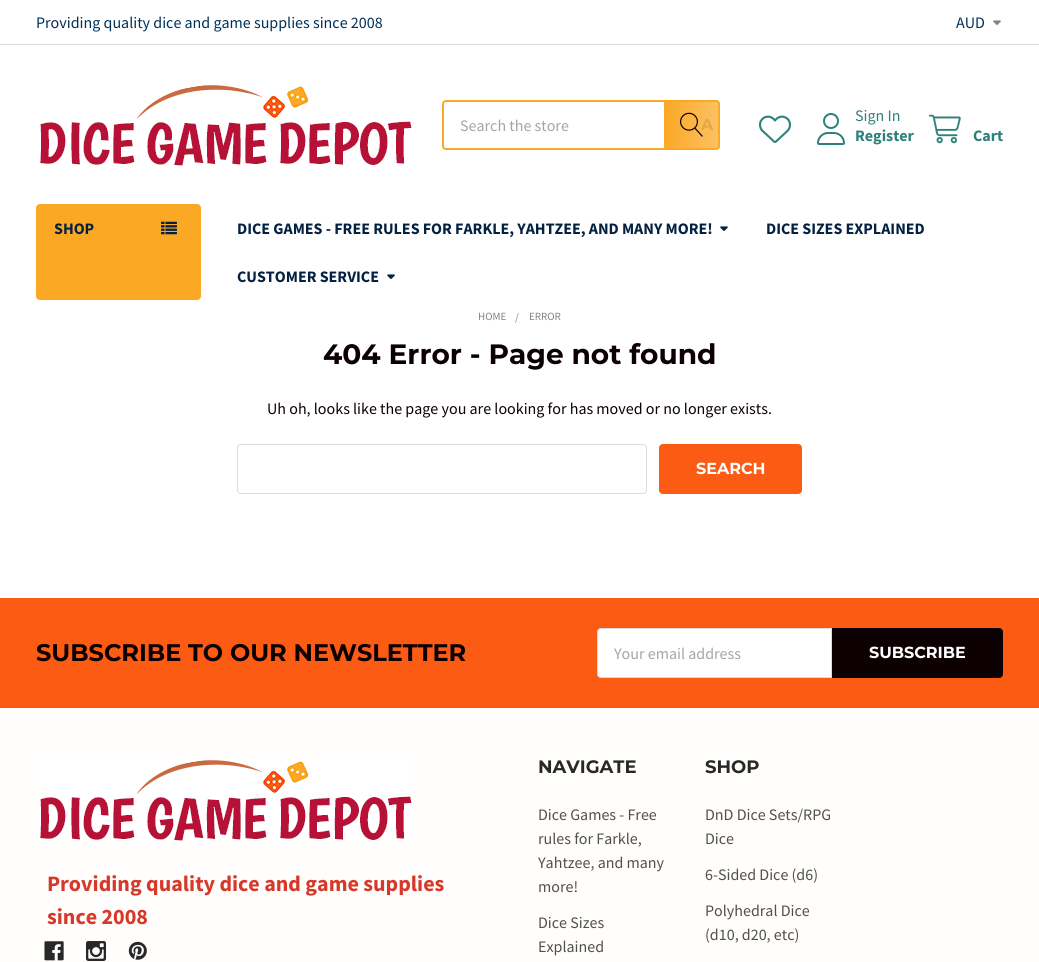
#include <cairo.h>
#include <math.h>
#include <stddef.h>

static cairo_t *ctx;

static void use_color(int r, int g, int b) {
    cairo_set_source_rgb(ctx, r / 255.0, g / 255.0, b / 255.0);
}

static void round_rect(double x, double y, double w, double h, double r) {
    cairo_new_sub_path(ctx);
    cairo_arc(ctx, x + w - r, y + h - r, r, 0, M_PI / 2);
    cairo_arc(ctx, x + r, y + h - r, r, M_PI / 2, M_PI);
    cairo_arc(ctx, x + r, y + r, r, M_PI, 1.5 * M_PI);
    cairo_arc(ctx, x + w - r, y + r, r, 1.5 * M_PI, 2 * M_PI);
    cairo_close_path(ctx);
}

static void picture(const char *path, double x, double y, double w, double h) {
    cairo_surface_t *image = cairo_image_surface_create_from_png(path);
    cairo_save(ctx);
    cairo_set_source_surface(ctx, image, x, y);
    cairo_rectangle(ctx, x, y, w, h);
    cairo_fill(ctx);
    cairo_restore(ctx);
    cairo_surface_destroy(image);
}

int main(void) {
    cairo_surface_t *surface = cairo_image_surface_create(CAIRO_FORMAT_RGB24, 1039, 962);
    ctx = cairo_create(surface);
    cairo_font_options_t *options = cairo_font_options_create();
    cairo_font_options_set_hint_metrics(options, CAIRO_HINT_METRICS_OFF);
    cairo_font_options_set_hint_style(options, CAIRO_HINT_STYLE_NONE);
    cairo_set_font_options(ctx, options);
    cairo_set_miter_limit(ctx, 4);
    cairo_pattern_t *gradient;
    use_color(255, 255, 255);
    cairo_paint(ctx);
    use_color(220, 220, 220);
    cairo_rectangle(ctx, 0, 44, 1039, 1);
    cairo_fill(ctx);
    cairo_select_font_face(ctx, "Source Sans Pro", CAIRO_FONT_SLANT_NORMAL, CAIRO_FONT_WEIGHT_NORMAL);
    cairo_set_font_size(ctx, 16);
    use_color(0, 48, 88);
    cairo_move_to(ctx, 36, 28);
    cairo_show_text(ctx, "Providing quality dice and game supplies since 2008");
    cairo_move_to(ctx, 956, 28);
    cairo_show_text(ctx, "AUD");
    picture("img1.png", 993, 20, 8, 5);
    picture("img2.png", 40, 85, 372, 81);
    round_rect(443, 101, 276, 48, 3);
    use_color(251, 168, 36);
    cairo_stroke(ctx);
    gradient = cairo_pattern_create_linear(664, 125, 720, 125);
    cairo_pattern_add_color_stop_rgba(gradient, 0, 0.984, 0.659, 0.141, 1);
    cairo_pattern_add_color_stop_rgba(gradient, 1, 0.984, 0.659, 0.141, 0.7);
    cairo_set_source(ctx, gradient);
    cairo_pattern_destroy(gradient);
    cairo_new_path(ctx);
    cairo_move_to(ctx, 664, 100);
    cairo_line_to(ctx, 716, 100);
    cairo_curve_to(ctx, 718, 100, 720, 102, 720, 104);
    cairo_line_to(ctx, 720, 146);
    cairo_curve_to(ctx, 720, 148, 718, 150, 716, 150);
    cairo_line_to(ctx, 664, 150);
    cairo_close_path(ctx);
    cairo_fill(ctx);
    picture("img3.png", 680, 112, 23, 25);
    use_color(165, 165, 165);
    cairo_move_to(ctx, 460, 131);
    cairo_show_text(ctx, "Search the store");
    cairo_select_font_face(ctx, "Montserrat Thin", CAIRO_FONT_SLANT_NORMAL, CAIRO_FONT_WEIGHT_NORMAL);
    use_color(229, 167, 69);
    cairo_move_to(ctx, 701, 130);
    cairo_show_text(ctx, "A");
    picture("img4.png", 759, 115, 32, 28);
    picture("img5.png", 817, 113, 28, 32);
    cairo_select_font_face(ctx, "Source Sans Pro", CAIRO_FONT_SLANT_NORMAL, CAIRO_FONT_WEIGHT_NORMAL);
    use_color(44, 129, 123);
    cairo_move_to(ctx, 855, 121);
    cairo_show_text(ctx, "Sign In");
    cairo_select_font_face(ctx, "Source Sans Pro", CAIRO_FONT_SLANT_NORMAL, CAIRO_FONT_WEIGHT_BOLD);
    cairo_move_to(ctx, 855, 141);
    cairo_show_text(ctx, "Register");
    picture("img6.png", 929, 114, 32, 30);
    cairo_move_to(ctx, 973, 141);
    cairo_show_text(ctx, "Cart");
    use_color(251, 168, 36);
    round_rect(36, 204, 165, 96, 4);
    cairo_fill(ctx);
    use_color(4, 33, 66);
    cairo_move_to(ctx, 54, 234);
    cairo_show_text(ctx, "SHOP");
    picture("img7.png", 161, 221, 16, 14);
    cairo_move_to(ctx, 237, 234);
    cairo_show_text(ctx, "DICE GAMES - FREE RULES FOR FARKLE, YAHTZEE, AND MANY MORE!");
    picture("img8.png", 720, 226, 8, 5);
    cairo_move_to(ctx, 766, 234);
    cairo_show_text(ctx, "DICE SIZES EXPLAINED");
    cairo_move_to(ctx, 237, 282);
    cairo_show_text(ctx, "CUSTOMER SERVICE");
    picture("img8.png", 387, 274, 8, 5);
    cairo_select_font_face(ctx, "Source Sans Pro", CAIRO_FONT_SLANT_NORMAL, CAIRO_FONT_WEIGHT_NORMAL);
    cairo_set_font_size(ctx, 11);
    use_color(129, 131, 137);
    cairo_move_to(ctx, 478, 320);
    cairo_show_text(ctx, "HOME");
    cairo_move_to(ctx, 515, 321);
    cairo_show_text(ctx, "/");
    cairo_move_to(ctx, 529, 320);
    cairo_show_text(ctx, "ERROR");
    cairo_select_font_face(ctx, "Montserrat Thin", CAIRO_FONT_SLANT_NORMAL, CAIRO_FONT_WEIGHT_NORMAL);
    cairo_set_font_size(ctx, 28);
    use_color(13, 0, 2);
    cairo_move_to(ctx, 323, 364);
    cairo_show_text(ctx, "404 Error - Page not found");
    cairo_select_font_face(ctx, "Source Sans Pro", CAIRO_FONT_SLANT_NORMAL, CAIRO_FONT_WEIGHT_NORMAL);
    cairo_set_font_size(ctx, 16);
    cairo_move_to(ctx, 267, 414);
    cairo_show_text(ctx, "Uh oh, looks like the page you are looking for has moved or no longer exists.");
    round_rect(237.5, 444.5, 409, 49, 3.5);
    use_color(220, 220, 220);
    cairo_set_line_width(ctx, 1);
    cairo_stroke(ctx);
    use_color(252, 91, 19);
    round_rect(659.5, 444.5, 142, 49, 3.5);
    cairo_fill_preserve(ctx);
    cairo_stroke(ctx);
    cairo_select_font_face(ctx, "Montserrat Thin", CAIRO_FONT_SLANT_NORMAL, CAIRO_FONT_WEIGHT_NORMAL);
    use_color(255, 255, 255);
    cairo_move_to(ctx, 696, 474);
    cairo_show_text(ctx, "SEARCH");
    use_color(255, 254, 252);
    cairo_rectangle(ctx, 0, 708, 1039, 254);
    cairo_fill(ctx);
    use_color(252, 91, 19);
    cairo_rectangle(ctx, 0, 598, 1039, 110);
    cairo_fill(ctx);
    cairo_set_font_size(ctx, 24);
    use_color(13, 0, 2);
    cairo_move_to(ctx, 36, 661);
    cairo_show_text(ctx, "SUBSCRIBE TO OUR NEWSLETTER");
    use_color(255, 255, 255);
    cairo_new_path(ctx);
    cairo_move_to(ctx, 601, 628.5);
    cairo_line_to(ctx, 831.5, 628.5);
    cairo_line_to(ctx, 831.5, 677.5);
    cairo_line_to(ctx, 601, 677.5);
    cairo_curve_to(ctx, 599, 677.5, 597.5, 676, 597.5, 674);
    cairo_line_to(ctx, 597.5, 632);
    cairo_curve_to(ctx, 597.5, 630, 599, 628.5, 601, 628.5);
    cairo_close_path(ctx);
    cairo_fill_preserve(ctx);
    use_color(220, 220, 220);
    cairo_stroke(ctx);
    cairo_select_font_face(ctx, "Source Sans Pro", CAIRO_FONT_SLANT_NORMAL, CAIRO_FONT_WEIGHT_NORMAL);
    cairo_set_font_size(ctx, 16);
    use_color(165, 165, 165);
    cairo_move_to(ctx, 614, 659);
    cairo_show_text(ctx, "Your email address");
    use_color(13, 0, 2);
    cairo_new_path(ctx);
    cairo_move_to(ctx, 832.5, 628.5);
    cairo_line_to(ctx, 999, 628.5);
    cairo_curve_to(ctx, 1001, 628.5, 1002.5, 630, 1002.5, 632);
    cairo_line_to(ctx, 1002.5, 674);
    cairo_curve_to(ctx, 1002.5, 676, 1001, 677.5, 999, 677.5);
    cairo_line_to(ctx, 832.5, 677.5);
    cairo_close_path(ctx);
    cairo_fill_preserve(ctx);
    cairo_stroke(ctx);
    cairo_select_font_face(ctx, "Montserrat Thin", CAIRO_FONT_SLANT_NORMAL, CAIRO_FONT_WEIGHT_NORMAL);
    use_color(255, 255, 255);
    cairo_move_to(ctx, 869, 658);
    cairo_show_text(ctx, "SUBSCRIBE");
    picture("img2.png", 40, 760, 372, 81);
    cairo_select_font_face(ctx, "Source Sans Pro", CAIRO_FONT_SLANT_NORMAL, CAIRO_FONT_WEIGHT_BOLD);
    cairo_set_font_size(ctx, 22);
    use_color(214, 56, 41);
    cairo_move_to(ctx, 47, 891);
    cairo_show_text(ctx, "Providing quality dice and game supplies");
    cairo_move_to(ctx, 47, 924);
    cairo_show_text(ctx, "since 2008");
    picture("img9.png", 44, 941, 20, 20);
    picture("img10.png", 86, 941, 20, 20);
    picture("img11.png", 128, 941, 19, 19);
    cairo_select_font_face(ctx, "Montserrat Thin", CAIRO_FONT_SLANT_NORMAL, CAIRO_FONT_WEIGHT_NORMAL);
    cairo_set_font_size(ctx, 18);
    use_color(40, 40, 40);
    cairo_move_to(ctx, 538, 773);
    cairo_show_text(ctx, "NAVIGATE");
    cairo_select_font_face(ctx, "Source Sans Pro", CAIRO_FONT_SLANT_NORMAL, CAIRO_FONT_WEIGHT_NORMAL);
    cairo_set_font_size(ctx, 16);
    use_color(80, 80, 80);
    cairo_move_to(ctx, 538, 820);
    cairo_show_text(ctx, "Dice Games - Free");
    cairo_move_to(ctx, 538, 844);
    cairo_show_text(ctx, "rules for Farkle,");
    cairo_move_to(ctx, 538, 868);
    cairo_show_text(ctx, "Yahtzee, and many");
    cairo_move_to(ctx, 538, 892);
    cairo_show_text(ctx, "more!");
    cairo_move_to(ctx, 538, 928);
    cairo_show_text(ctx, "Dice Sizes");
    cairo_move_to(ctx, 538, 952);
    cairo_show_text(ctx, "Explained");
    cairo_select_font_face(ctx, "Montserrat Thin", CAIRO_FONT_SLANT_NORMAL, CAIRO_FONT_WEIGHT_NORMAL);
    cairo_set_font_size(ctx, 18);
    use_color(40, 40, 40);
    cairo_move_to(ctx, 705, 773);
    cairo_show_text(ctx, "SHOP");
    cairo_select_font_face(ctx, "Source Sans Pro", CAIRO_FONT_SLANT_NORMAL, CAIRO_FONT_WEIGHT_NORMAL);
    cairo_set_font_size(ctx, 16);
    use_color(80, 80, 80);
    cairo_move_to(ctx, 705, 820);
    cairo_show_text(ctx, "DnD Dice Sets/RPG");
    cairo_move_to(ctx, 705, 844);
    cairo_show_text(ctx, "Dice");
    cairo_move_to(ctx, 705, 880);
    cairo_show_text(ctx, "6-Sided Dice (d6)");
    cairo_move_to(ctx, 705, 916);
    cairo_show_text(ctx, "Polyhedral Dice");
    cairo_move_to(ctx, 705, 940);
    cairo_show_text(ctx, "(d10, d20, etc)");
    cairo_surface_write_to_png(surface, "result.png");
    cairo_font_options_destroy(options);
    cairo_destroy(ctx);
    cairo_surface_destroy(surface);
    return 0;
}
